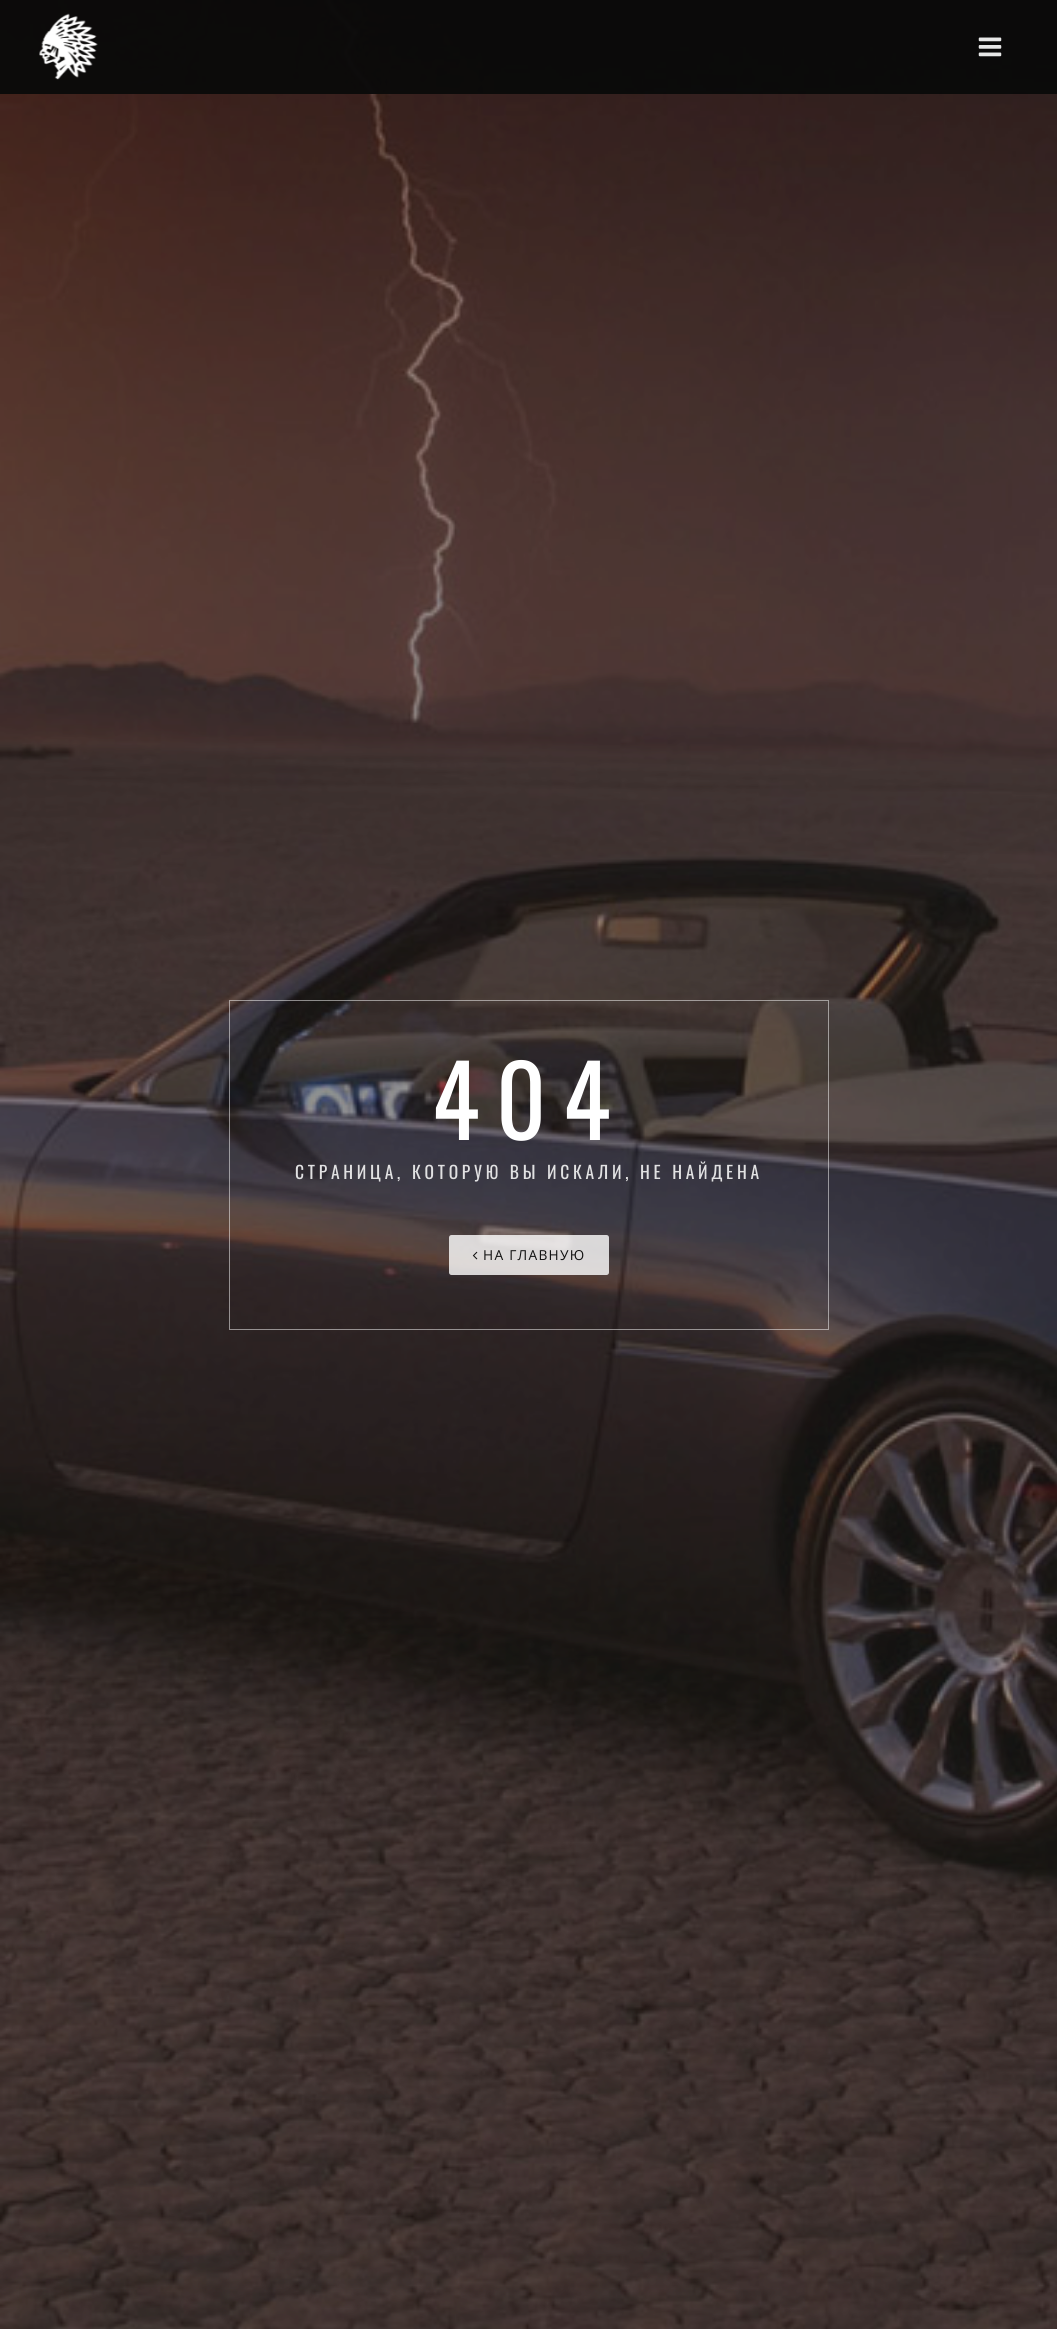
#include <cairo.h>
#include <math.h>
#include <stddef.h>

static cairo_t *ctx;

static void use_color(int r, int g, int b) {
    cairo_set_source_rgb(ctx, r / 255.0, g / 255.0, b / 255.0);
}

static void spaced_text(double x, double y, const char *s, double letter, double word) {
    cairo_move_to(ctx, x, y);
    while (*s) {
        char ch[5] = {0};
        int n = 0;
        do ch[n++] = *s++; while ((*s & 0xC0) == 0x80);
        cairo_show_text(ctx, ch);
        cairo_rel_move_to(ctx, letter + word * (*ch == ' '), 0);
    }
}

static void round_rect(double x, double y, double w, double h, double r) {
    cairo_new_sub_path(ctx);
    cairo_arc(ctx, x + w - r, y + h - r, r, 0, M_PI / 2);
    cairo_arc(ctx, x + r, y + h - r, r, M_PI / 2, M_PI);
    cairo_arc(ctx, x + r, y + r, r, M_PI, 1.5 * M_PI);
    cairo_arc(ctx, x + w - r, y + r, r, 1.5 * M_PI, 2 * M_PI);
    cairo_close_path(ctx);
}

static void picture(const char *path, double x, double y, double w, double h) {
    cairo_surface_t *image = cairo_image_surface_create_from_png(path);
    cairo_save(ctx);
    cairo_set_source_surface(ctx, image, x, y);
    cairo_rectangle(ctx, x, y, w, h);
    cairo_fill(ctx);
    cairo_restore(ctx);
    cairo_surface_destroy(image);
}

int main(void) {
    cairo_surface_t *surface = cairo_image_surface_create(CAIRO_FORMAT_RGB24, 1057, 2329);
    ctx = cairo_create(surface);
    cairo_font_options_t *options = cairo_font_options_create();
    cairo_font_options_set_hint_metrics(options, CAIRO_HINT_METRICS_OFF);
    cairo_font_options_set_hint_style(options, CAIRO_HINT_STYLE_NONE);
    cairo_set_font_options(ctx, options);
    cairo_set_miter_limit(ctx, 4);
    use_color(255, 255, 255);
    cairo_paint(ctx);
    picture("img3.png", 0, 0, 1057, 2329);
    cairo_set_source_rgba(ctx, 0.039, 0.039, 0.039, 0.95);
    cairo_rectangle(ctx, 0, 0, 1057, 94);
    cairo_fill(ctx);
    picture("img1.png", 39, 13, 59, 67);
    picture("img2.png", 978, 37, 24, 20);
    cairo_rectangle(ctx, 229.5, 1000.5, 599, 329);
    cairo_set_source_rgba(ctx, 1, 1, 1, 0.5);
    cairo_set_line_width(ctx, 1);
    cairo_stroke(ctx);
    cairo_select_font_face(ctx, "Oswald", CAIRO_FONT_SLANT_NORMAL, CAIRO_FONT_WEIGHT_NORMAL);
    cairo_set_font_size(ctx, 98);
    use_color(255, 255, 255);
    spaced_text(432, 1140, "404", 16.5, 0);
    cairo_set_font_size(ctx, 17.5);
    use_color(225, 225, 226);
    spaced_text(295, 1179, "СТРАНИЦА, КОТОРУЮ ВЫ ИСКАЛИ, НЕ НАЙДЕНА", 3.75, 0);
    cairo_set_source_rgba(ctx, 1, 1, 1, 0.8);
    round_rect(449, 1235, 160, 40, 2.5);
    cairo_fill(ctx);
    picture("img4.png", 472, 1251, 6, 9);
    cairo_select_font_face(ctx, "Open Sans", CAIRO_FONT_SLANT_NORMAL, CAIRO_FONT_WEIGHT_NORMAL);
    cairo_set_font_size(ctx, 13.75);
    use_color(17, 17, 17);
    spaced_text(483, 1260, "НА ГЛАВНУЮ", 1.25, 0);
    cairo_surface_write_to_png(surface, "result.png");
    cairo_font_options_destroy(options);
    cairo_destroy(ctx);
    cairo_surface_destroy(surface);
    return 0;
}
